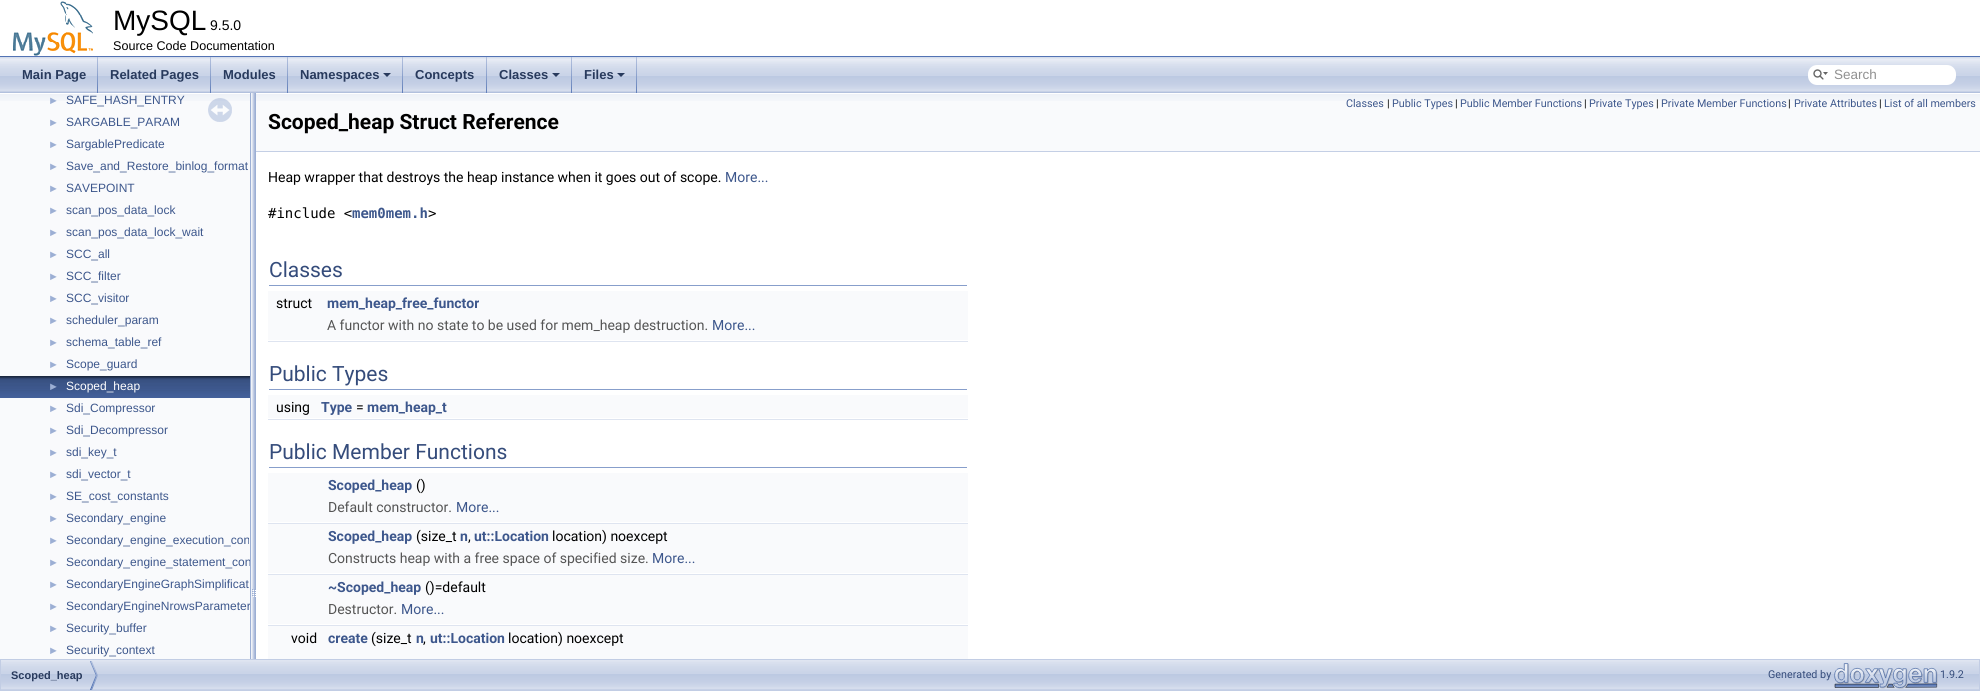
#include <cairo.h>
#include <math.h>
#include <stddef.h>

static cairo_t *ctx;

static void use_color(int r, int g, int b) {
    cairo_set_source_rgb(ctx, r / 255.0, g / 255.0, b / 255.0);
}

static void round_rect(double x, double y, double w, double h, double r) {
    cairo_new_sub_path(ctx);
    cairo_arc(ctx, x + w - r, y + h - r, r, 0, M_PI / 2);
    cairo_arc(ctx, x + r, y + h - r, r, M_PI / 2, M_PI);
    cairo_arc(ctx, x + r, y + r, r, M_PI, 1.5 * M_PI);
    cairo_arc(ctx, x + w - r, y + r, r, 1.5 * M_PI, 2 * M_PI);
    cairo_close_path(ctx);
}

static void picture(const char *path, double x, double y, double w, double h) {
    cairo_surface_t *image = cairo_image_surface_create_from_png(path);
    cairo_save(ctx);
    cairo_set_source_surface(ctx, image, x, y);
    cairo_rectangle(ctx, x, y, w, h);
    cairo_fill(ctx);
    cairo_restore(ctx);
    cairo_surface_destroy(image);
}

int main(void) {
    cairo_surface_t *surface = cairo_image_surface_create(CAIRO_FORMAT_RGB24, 1980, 691);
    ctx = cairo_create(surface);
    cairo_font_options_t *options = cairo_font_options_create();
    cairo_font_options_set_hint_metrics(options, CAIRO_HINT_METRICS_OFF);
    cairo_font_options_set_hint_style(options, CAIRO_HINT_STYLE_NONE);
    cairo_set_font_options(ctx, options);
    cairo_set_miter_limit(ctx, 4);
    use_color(255, 255, 255);
    cairo_paint(ctx);
    use_color(83, 115, 180);
    cairo_rectangle(ctx, 0, 56, 1980, 1);
    cairo_fill(ctx);
    picture("img1.png", 13, 1, 80, 55);
    cairo_select_font_face(ctx, "Liberation Sans", CAIRO_FONT_SLANT_NORMAL, CAIRO_FONT_WEIGHT_NORMAL);
    cairo_set_font_size(ctx, 28);
    use_color(0, 0, 0);
    cairo_move_to(ctx, 113, 30);
    cairo_show_text(ctx, "MySQL");
    cairo_set_font_size(ctx, 14);
    cairo_move_to(ctx, 210, 30);
    cairo_show_text(ctx, "9.5.0");
    cairo_set_font_size(ctx, 12.6);
    cairo_move_to(ctx, 113, 50);
    cairo_show_text(ctx, "Source Code Documentation");
    picture("img2.png", 0, 57, 1980, 36);
    picture("img3.png", 97, 57, 1, 36);
    cairo_select_font_face(ctx, "Liberation Sans", CAIRO_FONT_SLANT_NORMAL, CAIRO_FONT_WEIGHT_BOLD);
    cairo_set_font_size(ctx, 13);
    use_color(40, 58, 93);
    cairo_move_to(ctx, 22, 79);
    cairo_show_text(ctx, "Main Page");
    picture("img3.png", 210, 57, 1, 36);
    cairo_move_to(ctx, 110, 79);
    cairo_show_text(ctx, "Related Pages");
    picture("img3.png", 287, 57, 1, 36);
    cairo_move_to(ctx, 223, 79);
    cairo_show_text(ctx, "Modules");
    picture("img3.png", 402, 57, 1, 36);
    cairo_move_to(ctx, 300, 79);
    cairo_show_text(ctx, "Namespaces");
    cairo_new_path(ctx);
    cairo_move_to(ctx, 383, 73);
    cairo_line_to(ctx, 391, 73);
    cairo_line_to(ctx, 387, 77);
    cairo_close_path(ctx);
    cairo_fill(ctx);
    picture("img3.png", 486, 57, 1, 36);
    cairo_move_to(ctx, 415, 79);
    cairo_show_text(ctx, "Concepts");
    picture("img3.png", 571, 57, 1, 36);
    cairo_move_to(ctx, 499, 79);
    cairo_show_text(ctx, "Classes");
    cairo_new_path(ctx);
    cairo_move_to(ctx, 552, 73);
    cairo_line_to(ctx, 560, 73);
    cairo_line_to(ctx, 556, 77);
    cairo_close_path(ctx);
    cairo_fill(ctx);
    picture("img3.png", 636, 57, 1, 36);
    cairo_move_to(ctx, 584, 79);
    cairo_show_text(ctx, "Files");
    cairo_new_path(ctx);
    cairo_move_to(ctx, 617, 73);
    cairo_line_to(ctx, 625, 73);
    cairo_line_to(ctx, 621, 77);
    cairo_close_path(ctx);
    cairo_fill(ctx);
    use_color(255, 255, 255);
    round_rect(1808, 65, 148, 20, 9);
    cairo_fill(ctx);
    picture("img4.png", 1813, 69, 15, 11);
    cairo_select_font_face(ctx, "Liberation Sans", CAIRO_FONT_SLANT_NORMAL, CAIRO_FONT_WEIGHT_NORMAL);
    cairo_set_font_size(ctx, 13.5);
    use_color(144, 144, 144);
    cairo_move_to(ctx, 1834, 79);
    cairo_show_text(ctx, "Search");
    use_color(249, 250, 252);
    cairo_rectangle(ctx, 0, 101, 250, 558);
    cairo_fill(ctx);
    picture("img5.png", 0, 93, 250, 8);
    cairo_set_font_size(ctx, 11);
    use_color(156, 175, 212);
    cairo_move_to(ctx, 48, 104);
    cairo_show_text(ctx, "►");
    cairo_set_font_size(ctx, 12);
    use_color(61, 87, 140);
    cairo_move_to(ctx, 66, 104);
    cairo_show_text(ctx, "SAFE_HASH_ENTRY");
    cairo_set_font_size(ctx, 11);
    use_color(156, 175, 212);
    cairo_move_to(ctx, 48, 126);
    cairo_show_text(ctx, "►");
    cairo_set_font_size(ctx, 12);
    use_color(61, 87, 140);
    cairo_move_to(ctx, 66, 126);
    cairo_show_text(ctx, "SARGABLE_PARAM");
    cairo_set_font_size(ctx, 11);
    use_color(156, 175, 212);
    cairo_move_to(ctx, 48, 148);
    cairo_show_text(ctx, "►");
    cairo_set_font_size(ctx, 12);
    use_color(61, 87, 140);
    cairo_move_to(ctx, 66, 148);
    cairo_show_text(ctx, "SargablePredicate");
    cairo_set_font_size(ctx, 11);
    use_color(156, 175, 212);
    cairo_move_to(ctx, 48, 170);
    cairo_show_text(ctx, "►");
    cairo_set_font_size(ctx, 12);
    use_color(61, 87, 140);
    cairo_move_to(ctx, 66, 170);
    cairo_show_text(ctx, "Save_and_Restore_binlog_format");
    cairo_set_font_size(ctx, 11);
    use_color(156, 175, 212);
    cairo_move_to(ctx, 48, 192);
    cairo_show_text(ctx, "►");
    cairo_set_font_size(ctx, 12);
    use_color(61, 87, 140);
    cairo_move_to(ctx, 66, 192);
    cairo_show_text(ctx, "SAVEPOINT");
    cairo_set_font_size(ctx, 11);
    use_color(156, 175, 212);
    cairo_move_to(ctx, 48, 214);
    cairo_show_text(ctx, "►");
    cairo_set_font_size(ctx, 12);
    use_color(61, 87, 140);
    cairo_move_to(ctx, 66, 214);
    cairo_show_text(ctx, "scan_pos_data_lock");
    cairo_set_font_size(ctx, 11);
    use_color(156, 175, 212);
    cairo_move_to(ctx, 48, 236);
    cairo_show_text(ctx, "►");
    cairo_set_font_size(ctx, 12);
    use_color(61, 87, 140);
    cairo_move_to(ctx, 66, 236);
    cairo_show_text(ctx, "scan_pos_data_lock_wait");
    cairo_set_font_size(ctx, 11);
    use_color(156, 175, 212);
    cairo_move_to(ctx, 48, 258);
    cairo_show_text(ctx, "►");
    cairo_set_font_size(ctx, 12);
    use_color(61, 87, 140);
    cairo_move_to(ctx, 66, 258);
    cairo_show_text(ctx, "SCC_all");
    cairo_set_font_size(ctx, 11);
    use_color(156, 175, 212);
    cairo_move_to(ctx, 48, 280);
    cairo_show_text(ctx, "►");
    cairo_set_font_size(ctx, 12);
    use_color(61, 87, 140);
    cairo_move_to(ctx, 66, 280);
    cairo_show_text(ctx, "SCC_filter");
    cairo_set_font_size(ctx, 11);
    use_color(156, 175, 212);
    cairo_move_to(ctx, 48, 302);
    cairo_show_text(ctx, "►");
    cairo_set_font_size(ctx, 12);
    use_color(61, 87, 140);
    cairo_move_to(ctx, 66, 302);
    cairo_show_text(ctx, "SCC_visitor");
    cairo_set_font_size(ctx, 11);
    use_color(156, 175, 212);
    cairo_move_to(ctx, 48, 324);
    cairo_show_text(ctx, "►");
    cairo_set_font_size(ctx, 12);
    use_color(61, 87, 140);
    cairo_move_to(ctx, 66, 324);
    cairo_show_text(ctx, "scheduler_param");
    cairo_set_font_size(ctx, 11);
    use_color(156, 175, 212);
    cairo_move_to(ctx, 48, 346);
    cairo_show_text(ctx, "►");
    cairo_set_font_size(ctx, 12);
    use_color(61, 87, 140);
    cairo_move_to(ctx, 66, 346);
    cairo_show_text(ctx, "schema_table_ref");
    cairo_set_font_size(ctx, 11);
    use_color(156, 175, 212);
    cairo_move_to(ctx, 48, 368);
    cairo_show_text(ctx, "►");
    cairo_set_font_size(ctx, 12);
    use_color(61, 87, 140);
    cairo_move_to(ctx, 66, 368);
    cairo_show_text(ctx, "Scope_guard");
    picture("img6.png", 0, 376, 250, 22);
    cairo_set_font_size(ctx, 11);
    use_color(156, 175, 212);
    cairo_move_to(ctx, 48, 390);
    cairo_show_text(ctx, "►");
    cairo_set_font_size(ctx, 12);
    use_color(255, 255, 255);
    cairo_move_to(ctx, 66, 390);
    cairo_show_text(ctx, "Scoped_heap");
    cairo_set_font_size(ctx, 11);
    use_color(156, 175, 212);
    cairo_move_to(ctx, 48, 412);
    cairo_show_text(ctx, "►");
    cairo_set_font_size(ctx, 12);
    use_color(61, 87, 140);
    cairo_move_to(ctx, 66, 412);
    cairo_show_text(ctx, "Sdi_Compressor");
    cairo_set_font_size(ctx, 11);
    use_color(156, 175, 212);
    cairo_move_to(ctx, 48, 434);
    cairo_show_text(ctx, "►");
    cairo_set_font_size(ctx, 12);
    use_color(61, 87, 140);
    cairo_move_to(ctx, 66, 434);
    cairo_show_text(ctx, "Sdi_Decompressor");
    cairo_set_font_size(ctx, 11);
    use_color(156, 175, 212);
    cairo_move_to(ctx, 48, 456);
    cairo_show_text(ctx, "►");
    cairo_set_font_size(ctx, 12);
    use_color(61, 87, 140);
    cairo_move_to(ctx, 66, 456);
    cairo_show_text(ctx, "sdi_key_t");
    cairo_set_font_size(ctx, 11);
    use_color(156, 175, 212);
    cairo_move_to(ctx, 48, 478);
    cairo_show_text(ctx, "►");
    cairo_set_font_size(ctx, 12);
    use_color(61, 87, 140);
    cairo_move_to(ctx, 66, 478);
    cairo_show_text(ctx, "sdi_vector_t");
    cairo_set_font_size(ctx, 11);
    use_color(156, 175, 212);
    cairo_move_to(ctx, 48, 500);
    cairo_show_text(ctx, "►");
    cairo_set_font_size(ctx, 12);
    use_color(61, 87, 140);
    cairo_move_to(ctx, 66, 500);
    cairo_show_text(ctx, "SE_cost_constants");
    cairo_set_font_size(ctx, 11);
    use_color(156, 175, 212);
    cairo_move_to(ctx, 48, 522);
    cairo_show_text(ctx, "►");
    cairo_set_font_size(ctx, 12);
    use_color(61, 87, 140);
    cairo_move_to(ctx, 66, 522);
    cairo_show_text(ctx, "Secondary_engine");
    cairo_set_font_size(ctx, 11);
    use_color(156, 175, 212);
    cairo_move_to(ctx, 48, 544);
    cairo_show_text(ctx, "►");
    cairo_set_font_size(ctx, 12);
    use_color(61, 87, 140);
    cairo_move_to(ctx, 66, 544);
    cairo_show_text(ctx, "Secondary_engine_execution_con");
    cairo_set_font_size(ctx, 11);
    use_color(156, 175, 212);
    cairo_move_to(ctx, 48, 566);
    cairo_show_text(ctx, "►");
    cairo_set_font_size(ctx, 12);
    use_color(61, 87, 140);
    cairo_move_to(ctx, 66, 566);
    cairo_show_text(ctx, "Secondary_engine_statement_con");
    cairo_set_font_size(ctx, 11);
    use_color(156, 175, 212);
    cairo_move_to(ctx, 48, 588);
    cairo_show_text(ctx, "►");
    cairo_set_font_size(ctx, 12);
    use_color(61, 87, 140);
    cairo_move_to(ctx, 66, 588);
    cairo_show_text(ctx, "SecondaryEngineGraphSimplificat");
    cairo_set_font_size(ctx, 11);
    use_color(156, 175, 212);
    cairo_move_to(ctx, 48, 610);
    cairo_show_text(ctx, "►");
    cairo_set_font_size(ctx, 12);
    use_color(61, 87, 140);
    cairo_move_to(ctx, 66, 610);
    cairo_show_text(ctx, "SecondaryEngineNrowsParameter");
    cairo_set_font_size(ctx, 11);
    use_color(156, 175, 212);
    cairo_move_to(ctx, 48, 632);
    cairo_show_text(ctx, "►");
    cairo_set_font_size(ctx, 12);
    use_color(61, 87, 140);
    cairo_move_to(ctx, 66, 632);
    cairo_show_text(ctx, "Security_buffer");
    cairo_set_font_size(ctx, 11);
    use_color(156, 175, 212);
    cairo_move_to(ctx, 48, 654);
    cairo_show_text(ctx, "►");
    cairo_set_font_size(ctx, 12);
    use_color(61, 87, 140);
    cairo_move_to(ctx, 66, 654);
    cairo_show_text(ctx, "Security_context");
    picture("img7.png", 208, 98, 24, 24);
    picture("img8.png", 250, 93, 6, 566);
    use_color(249, 250, 252);
    cairo_rectangle(ctx, 256, 101, 1724, 50);
    cairo_fill(ctx);
    picture("img9.png", 256, 93, 1724, 8);
    use_color(196, 207, 229);
    cairo_rectangle(ctx, 256, 151, 1724, 1);
    cairo_fill(ctx);
    cairo_select_font_face(ctx, "Roboto", CAIRO_FONT_SLANT_NORMAL, CAIRO_FONT_WEIGHT_NORMAL);
    cairo_set_font_size(ctx, 10.75);
    use_color(61, 87, 140);
    cairo_move_to(ctx, 1346, 107);
    cairo_show_text(ctx, "Classes");
    use_color(0, 0, 0);
    cairo_move_to(ctx, 1387, 107);
    cairo_show_text(ctx, "|");
    use_color(61, 87, 140);
    cairo_move_to(ctx, 1392, 107);
    cairo_show_text(ctx, "Public Types");
    use_color(0, 0, 0);
    cairo_move_to(ctx, 1455, 107);
    cairo_show_text(ctx, "|");
    use_color(61, 87, 140);
    cairo_move_to(ctx, 1460, 107);
    cairo_show_text(ctx, "Public Member Functions");
    use_color(0, 0, 0);
    cairo_move_to(ctx, 1584, 107);
    cairo_show_text(ctx, "|");
    use_color(61, 87, 140);
    cairo_move_to(ctx, 1589, 107);
    cairo_show_text(ctx, "Private Types");
    use_color(0, 0, 0);
    cairo_move_to(ctx, 1656, 107);
    cairo_show_text(ctx, "|");
    use_color(61, 87, 140);
    cairo_move_to(ctx, 1661, 107);
    cairo_show_text(ctx, "Private Member Functions");
    use_color(0, 0, 0);
    cairo_move_to(ctx, 1788, 107);
    cairo_show_text(ctx, "|");
    use_color(61, 87, 140);
    cairo_move_to(ctx, 1794, 107);
    cairo_show_text(ctx, "Private Attributes");
    use_color(0, 0, 0);
    cairo_move_to(ctx, 1879, 107);
    cairo_show_text(ctx, "|");
    use_color(61, 87, 140);
    cairo_move_to(ctx, 1884, 107);
    cairo_show_text(ctx, "List of all members");
    cairo_select_font_face(ctx, "Roboto", CAIRO_FONT_SLANT_NORMAL, CAIRO_FONT_WEIGHT_BOLD);
    cairo_set_font_size(ctx, 21);
    use_color(0, 0, 0);
    cairo_move_to(ctx, 268, 129);
    cairo_show_text(ctx, "Scoped_heap Struct Reference");
    cairo_select_font_face(ctx, "Roboto", CAIRO_FONT_SLANT_NORMAL, CAIRO_FONT_WEIGHT_NORMAL);
    cairo_set_font_size(ctx, 14);
    cairo_move_to(ctx, 268, 182);
    cairo_show_text(ctx, "Heap wrapper that destroys the heap instance when it goes out of scope.");
    use_color(61, 87, 140);
    cairo_move_to(ctx, 725, 182);
    cairo_show_text(ctx, "More...");
    cairo_select_font_face(ctx, "DejaVu Sans Mono", CAIRO_FONT_SLANT_NORMAL, CAIRO_FONT_WEIGHT_NORMAL);
    use_color(0, 0, 0);
    cairo_move_to(ctx, 268, 218);
    cairo_show_text(ctx, "#include <");
    cairo_select_font_face(ctx, "DejaVu Sans Mono", CAIRO_FONT_SLANT_NORMAL, CAIRO_FONT_WEIGHT_BOLD);
    use_color(61, 87, 140);
    cairo_move_to(ctx, 352, 218);
    cairo_show_text(ctx, "mem0mem.h");
    cairo_select_font_face(ctx, "DejaVu Sans Mono", CAIRO_FONT_SLANT_NORMAL, CAIRO_FONT_WEIGHT_NORMAL);
    use_color(0, 0, 0);
    cairo_move_to(ctx, 428, 218);
    cairo_show_text(ctx, ">");
    use_color(135, 158, 203);
    cairo_rectangle(ctx, 269, 285, 698, 1);
    cairo_fill(ctx);
    cairo_select_font_face(ctx, "Roboto", CAIRO_FONT_SLANT_NORMAL, CAIRO_FONT_WEIGHT_NORMAL);
    cairo_set_font_size(ctx, 21);
    use_color(53, 76, 123);
    cairo_move_to(ctx, 269, 277);
    cairo_show_text(ctx, "Classes");
    use_color(249, 250, 252);
    cairo_rectangle(ctx, 268, 291, 700, 23);
    cairo_fill(ctx);
    cairo_set_font_size(ctx, 14);
    use_color(0, 0, 0);
    cairo_move_to(ctx, 276, 308);
    cairo_show_text(ctx, "struct");
    cairo_select_font_face(ctx, "Roboto", CAIRO_FONT_SLANT_NORMAL, CAIRO_FONT_WEIGHT_BOLD);
    use_color(61, 87, 140);
    cairo_move_to(ctx, 327, 308);
    cairo_show_text(ctx, "mem_heap_free_functor");
    use_color(249, 250, 252);
    cairo_rectangle(ctx, 268, 314, 700, 26);
    cairo_fill(ctx);
    cairo_select_font_face(ctx, "Roboto", CAIRO_FONT_SLANT_NORMAL, CAIRO_FONT_WEIGHT_NORMAL);
    use_color(85, 85, 85);
    cairo_move_to(ctx, 327, 330);
    cairo_show_text(ctx, "A functor with no state to be used for mem_heap destruction.");
    use_color(61, 87, 140);
    cairo_move_to(ctx, 712, 330);
    cairo_show_text(ctx, "More...");
    use_color(222, 228, 240);
    cairo_rectangle(ctx, 268, 341, 700, 1);
    cairo_fill(ctx);
    use_color(135, 158, 203);
    cairo_rectangle(ctx, 269, 389, 698, 1);
    cairo_fill(ctx);
    cairo_set_font_size(ctx, 21);
    use_color(53, 76, 123);
    cairo_move_to(ctx, 269, 381);
    cairo_show_text(ctx, "Public Types");
    use_color(249, 250, 252);
    cairo_rectangle(ctx, 268, 395, 700, 23);
    cairo_fill(ctx);
    cairo_set_font_size(ctx, 14);
    use_color(0, 0, 0);
    cairo_move_to(ctx, 276, 412);
    cairo_show_text(ctx, "using");
    cairo_select_font_face(ctx, "Roboto", CAIRO_FONT_SLANT_NORMAL, CAIRO_FONT_WEIGHT_BOLD);
    use_color(61, 87, 140);
    cairo_move_to(ctx, 321, 412);
    cairo_show_text(ctx, "Type");
    cairo_select_font_face(ctx, "Roboto", CAIRO_FONT_SLANT_NORMAL, CAIRO_FONT_WEIGHT_NORMAL);
    use_color(0, 0, 0);
    cairo_move_to(ctx, 356, 412);
    cairo_show_text(ctx, "=");
    cairo_select_font_face(ctx, "Roboto", CAIRO_FONT_SLANT_NORMAL, CAIRO_FONT_WEIGHT_BOLD);
    use_color(61, 87, 140);
    cairo_move_to(ctx, 367, 412);
    cairo_show_text(ctx, "mem_heap_t");
    use_color(222, 228, 240);
    cairo_rectangle(ctx, 268, 419, 700, 1);
    cairo_fill(ctx);
    use_color(135, 158, 203);
    cairo_rectangle(ctx, 269, 467, 698, 1);
    cairo_fill(ctx);
    cairo_select_font_face(ctx, "Roboto", CAIRO_FONT_SLANT_NORMAL, CAIRO_FONT_WEIGHT_NORMAL);
    cairo_set_font_size(ctx, 21);
    use_color(53, 76, 123);
    cairo_move_to(ctx, 269, 459);
    cairo_show_text(ctx, "Public Member Functions");
    use_color(249, 250, 252);
    cairo_rectangle(ctx, 268, 473, 700, 23);
    cairo_fill(ctx);
    cairo_select_font_face(ctx, "Roboto", CAIRO_FONT_SLANT_NORMAL, CAIRO_FONT_WEIGHT_BOLD);
    cairo_set_font_size(ctx, 14);
    use_color(61, 87, 140);
    cairo_move_to(ctx, 328, 490);
    cairo_show_text(ctx, "Scoped_heap");
    cairo_select_font_face(ctx, "Roboto", CAIRO_FONT_SLANT_NORMAL, CAIRO_FONT_WEIGHT_NORMAL);
    use_color(0, 0, 0);
    cairo_move_to(ctx, 416, 490);
    cairo_show_text(ctx, "()");
    use_color(249, 250, 252);
    cairo_rectangle(ctx, 268, 496, 700, 26);
    cairo_fill(ctx);
    use_color(85, 85, 85);
    cairo_move_to(ctx, 328, 512);
    cairo_show_text(ctx, "Default constructor.");
    use_color(61, 87, 140);
    cairo_move_to(ctx, 456, 512);
    cairo_show_text(ctx, "More...");
    use_color(222, 228, 240);
    cairo_rectangle(ctx, 268, 523, 700, 1);
    cairo_fill(ctx);
    use_color(249, 250, 252);
    cairo_rectangle(ctx, 268, 524, 700, 23);
    cairo_fill(ctx);
    cairo_select_font_face(ctx, "Roboto", CAIRO_FONT_SLANT_NORMAL, CAIRO_FONT_WEIGHT_BOLD);
    use_color(61, 87, 140);
    cairo_move_to(ctx, 328, 541);
    cairo_show_text(ctx, "Scoped_heap");
    cairo_select_font_face(ctx, "Roboto", CAIRO_FONT_SLANT_NORMAL, CAIRO_FONT_WEIGHT_NORMAL);
    use_color(0, 0, 0);
    cairo_move_to(ctx, 416, 541);
    cairo_show_text(ctx, "(size_t");
    cairo_select_font_face(ctx, "Roboto", CAIRO_FONT_SLANT_NORMAL, CAIRO_FONT_WEIGHT_BOLD);
    use_color(61, 87, 140);
    cairo_move_to(ctx, 460, 541);
    cairo_show_text(ctx, "n");
    cairo_select_font_face(ctx, "Roboto", CAIRO_FONT_SLANT_NORMAL, CAIRO_FONT_WEIGHT_NORMAL);
    use_color(0, 0, 0);
    cairo_move_to(ctx, 468, 541);
    cairo_show_text(ctx, ",");
    cairo_select_font_face(ctx, "Roboto", CAIRO_FONT_SLANT_NORMAL, CAIRO_FONT_WEIGHT_BOLD);
    use_color(61, 87, 140);
    cairo_move_to(ctx, 474, 541);
    cairo_show_text(ctx, "ut::Location");
    cairo_select_font_face(ctx, "Roboto", CAIRO_FONT_SLANT_NORMAL, CAIRO_FONT_WEIGHT_NORMAL);
    use_color(0, 0, 0);
    cairo_move_to(ctx, 552, 541);
    cairo_show_text(ctx, "location) noexcept");
    use_color(249, 250, 252);
    cairo_rectangle(ctx, 268, 547, 700, 26);
    cairo_fill(ctx);
    use_color(85, 85, 85);
    cairo_move_to(ctx, 328, 563);
    cairo_show_text(ctx, "Constructs heap with a free space of specified size.");
    use_color(61, 87, 140);
    cairo_move_to(ctx, 652, 563);
    cairo_show_text(ctx, "More...");
    use_color(222, 228, 240);
    cairo_rectangle(ctx, 268, 574, 700, 1);
    cairo_fill(ctx);
    use_color(249, 250, 252);
    cairo_rectangle(ctx, 268, 575, 700, 23);
    cairo_fill(ctx);
    cairo_select_font_face(ctx, "Roboto", CAIRO_FONT_SLANT_NORMAL, CAIRO_FONT_WEIGHT_BOLD);
    use_color(61, 87, 140);
    cairo_move_to(ctx, 328, 592);
    cairo_show_text(ctx, "~Scoped_heap");
    cairo_select_font_face(ctx, "Roboto", CAIRO_FONT_SLANT_NORMAL, CAIRO_FONT_WEIGHT_NORMAL);
    use_color(0, 0, 0);
    cairo_move_to(ctx, 425, 592);
    cairo_show_text(ctx, "()=default");
    use_color(249, 250, 252);
    cairo_rectangle(ctx, 268, 598, 700, 26);
    cairo_fill(ctx);
    use_color(85, 85, 85);
    cairo_move_to(ctx, 328, 614);
    cairo_show_text(ctx, "Destructor.");
    use_color(61, 87, 140);
    cairo_move_to(ctx, 401, 614);
    cairo_show_text(ctx, "More...");
    use_color(222, 228, 240);
    cairo_rectangle(ctx, 268, 625, 700, 1);
    cairo_fill(ctx);
    use_color(249, 250, 252);
    cairo_rectangle(ctx, 268, 626, 700, 23);
    cairo_fill(ctx);
    use_color(0, 0, 0);
    cairo_move_to(ctx, 291, 643);
    cairo_show_text(ctx, "void");
    cairo_select_font_face(ctx, "Roboto", CAIRO_FONT_SLANT_NORMAL, CAIRO_FONT_WEIGHT_BOLD);
    use_color(61, 87, 140);
    cairo_move_to(ctx, 328, 643);
    cairo_show_text(ctx, "create");
    cairo_select_font_face(ctx, "Roboto", CAIRO_FONT_SLANT_NORMAL, CAIRO_FONT_WEIGHT_NORMAL);
    use_color(0, 0, 0);
    cairo_move_to(ctx, 371, 643);
    cairo_show_text(ctx, "(size_t");
    cairo_select_font_face(ctx, "Roboto", CAIRO_FONT_SLANT_NORMAL, CAIRO_FONT_WEIGHT_BOLD);
    use_color(61, 87, 140);
    cairo_move_to(ctx, 416, 643);
    cairo_show_text(ctx, "n");
    cairo_select_font_face(ctx, "Roboto", CAIRO_FONT_SLANT_NORMAL, CAIRO_FONT_WEIGHT_NORMAL);
    use_color(0, 0, 0);
    cairo_move_to(ctx, 423, 643);
    cairo_show_text(ctx, ",");
    cairo_select_font_face(ctx, "Roboto", CAIRO_FONT_SLANT_NORMAL, CAIRO_FONT_WEIGHT_BOLD);
    use_color(61, 87, 140);
    cairo_move_to(ctx, 430, 643);
    cairo_show_text(ctx, "ut::Location");
    cairo_select_font_face(ctx, "Roboto", CAIRO_FONT_SLANT_NORMAL, CAIRO_FONT_WEIGHT_NORMAL);
    use_color(0, 0, 0);
    cairo_move_to(ctx, 508, 643);
    cairo_show_text(ctx, "location) noexcept");
    use_color(249, 250, 252);
    cairo_rectangle(ctx, 268, 649, 700, 10);
    cairo_fill(ctx);
    picture("img10.png", 1, 660, 1978, 30);
    cairo_rectangle(ctx, 0.5, 659.5, 1979, 31);
    use_color(194, 205, 228);
    cairo_set_line_width(ctx, 1);
    cairo_stroke(ctx);
    picture("img11.png", 90, 661, 8, 29);
    cairo_select_font_face(ctx, "Liberation Sans", CAIRO_FONT_SLANT_NORMAL, CAIRO_FONT_WEIGHT_BOLD);
    cairo_set_font_size(ctx, 11);
    use_color(40, 58, 93);
    cairo_move_to(ctx, 11, 679);
    cairo_show_text(ctx, "Scoped_heap");
    cairo_select_font_face(ctx, "Roboto", CAIRO_FONT_SLANT_NORMAL, CAIRO_FONT_WEIGHT_NORMAL);
    cairo_set_font_size(ctx, 10.75);
    use_color(53, 76, 123);
    cairo_move_to(ctx, 1768, 678);
    cairo_show_text(ctx, "Generated by");
    picture("img12.png", 1834, 663, 104, 26);
    cairo_move_to(ctx, 1940, 678);
    cairo_show_text(ctx, "1.9.2");
    cairo_surface_write_to_png(surface, "result.png");
    cairo_font_options_destroy(options);
    cairo_destroy(ctx);
    cairo_surface_destroy(surface);
    return 0;
}
